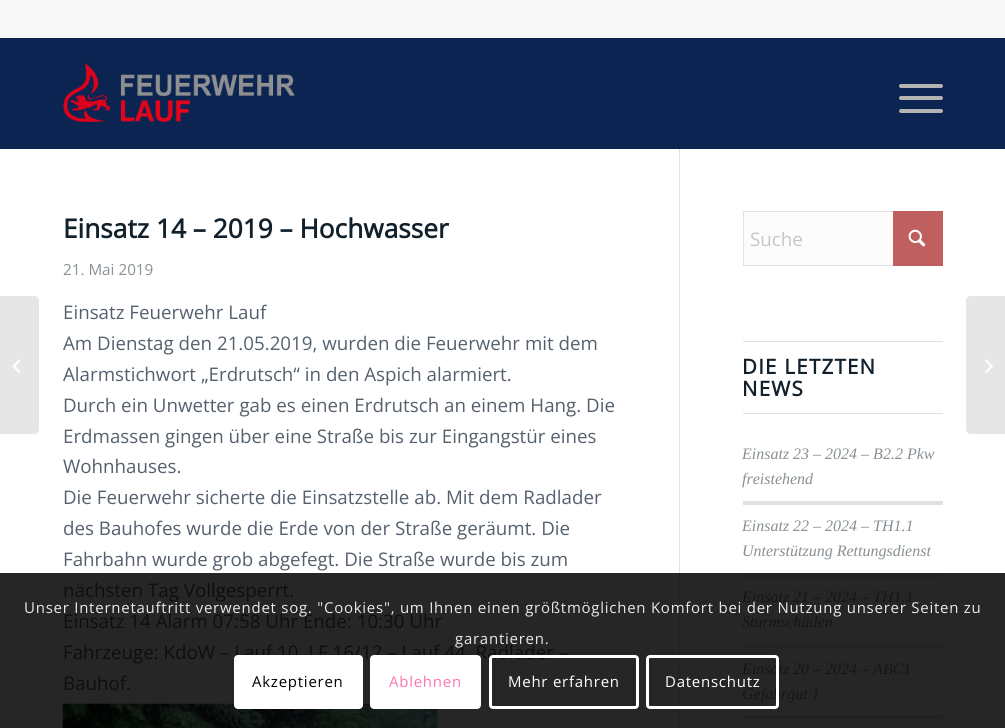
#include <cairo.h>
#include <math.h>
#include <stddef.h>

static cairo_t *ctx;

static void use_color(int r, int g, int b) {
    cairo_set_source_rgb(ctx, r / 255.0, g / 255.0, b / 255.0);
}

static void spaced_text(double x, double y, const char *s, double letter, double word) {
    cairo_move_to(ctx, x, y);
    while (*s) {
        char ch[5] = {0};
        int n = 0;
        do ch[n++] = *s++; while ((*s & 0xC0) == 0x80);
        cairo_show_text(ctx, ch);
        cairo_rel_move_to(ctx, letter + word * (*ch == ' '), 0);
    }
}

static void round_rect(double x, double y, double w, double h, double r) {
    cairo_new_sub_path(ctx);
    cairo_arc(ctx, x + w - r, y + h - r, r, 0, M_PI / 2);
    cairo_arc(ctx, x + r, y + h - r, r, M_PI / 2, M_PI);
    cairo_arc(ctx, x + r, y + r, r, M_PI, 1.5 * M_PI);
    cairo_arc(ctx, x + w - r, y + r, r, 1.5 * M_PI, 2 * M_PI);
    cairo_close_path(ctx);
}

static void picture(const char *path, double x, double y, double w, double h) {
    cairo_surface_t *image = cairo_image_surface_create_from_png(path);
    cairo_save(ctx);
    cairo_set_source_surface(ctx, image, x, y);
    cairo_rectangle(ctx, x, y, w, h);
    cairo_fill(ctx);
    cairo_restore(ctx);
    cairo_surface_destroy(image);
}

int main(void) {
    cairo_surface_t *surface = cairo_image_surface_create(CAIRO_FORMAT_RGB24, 1005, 728);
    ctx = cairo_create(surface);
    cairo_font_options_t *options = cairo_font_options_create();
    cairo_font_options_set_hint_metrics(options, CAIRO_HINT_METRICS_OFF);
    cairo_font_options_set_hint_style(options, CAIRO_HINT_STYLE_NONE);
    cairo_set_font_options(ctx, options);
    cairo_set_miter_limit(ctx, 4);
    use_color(255, 255, 255);
    cairo_paint(ctx);
    use_color(248, 248, 248);
    cairo_rectangle(ctx, 0, 0, 1005, 38);
    cairo_fill(ctx);
    use_color(12, 36, 82);
    cairo_rectangle(ctx, 0, 38, 1005, 111);
    cairo_fill(ctx);
    picture("img1.png", 63, 63, 232, 60);
    use_color(179, 179, 179);
    round_rect(899, 96, 44, 4, 2);
    cairo_fill(ctx);
    round_rect(899, 84, 44, 4, 2);
    cairo_fill(ctx);
    round_rect(899, 109, 44, 4, 2);
    cairo_fill(ctx);
    use_color(230, 230, 230);
    cairo_new_path(ctx);
    cairo_move_to(ctx, 0, 296);
    cairo_line_to(ctx, 34, 296);
    cairo_curve_to(ctx, 37, 296, 39, 298, 39, 301);
    cairo_line_to(ctx, 39, 429);
    cairo_curve_to(ctx, 39, 432, 37, 434, 34, 434);
    cairo_line_to(ctx, 0, 434);
    cairo_close_path(ctx);
    cairo_fill(ctx);
    picture("img2.png", 13, 359, 7, 14);
    use_color(38, 38, 38);
    cairo_rectangle(ctx, 0, 573, 1005, 155);
    cairo_fill(ctx);
    use_color(225, 225, 225);
    cairo_rectangle(ctx, 679, 149, 1, 424);
    cairo_fill(ctx);
    use_color(34, 34, 34);
    cairo_rectangle(ctx, 679, 573, 1, 155);
    cairo_fill(ctx);
    cairo_select_font_face(ctx, "Open Sans", CAIRO_FONT_SLANT_NORMAL, CAIRO_FONT_WEIGHT_BOLD);
    cairo_set_font_size(ctx, 26.25);
    use_color(17, 32, 42);
    cairo_move_to(ctx, 63, 238);
    cairo_show_text(ctx, "Einsatz 14 – 2019 – Hochwasser");
    cairo_select_font_face(ctx, "Open Sans", CAIRO_FONT_SLANT_NORMAL, CAIRO_FONT_WEIGHT_NORMAL);
    cairo_set_font_size(ctx, 15.25);
    use_color(136, 144, 149);
    cairo_move_to(ctx, 63, 275);
    cairo_show_text(ctx, "21. Mai 2019");
    cairo_set_font_size(ctx, 18.75);
    use_color(85, 96, 110);
    cairo_move_to(ctx, 63, 319);
    cairo_show_text(ctx, "Einsatz Feuerwehr Lauf");
    cairo_move_to(ctx, 63, 350);
    cairo_show_text(ctx, "Am Dienstag den 21.05.2019, wurden die Feuerwehr mit dem");
    cairo_move_to(ctx, 63, 381);
    cairo_show_text(ctx, "Alarmstichwort „Erdrutsch“ in den Aspich alarmiert.");
    cairo_move_to(ctx, 63, 412);
    cairo_show_text(ctx, "Durch ein Unwetter gab es einen Erdrutsch an einem Hang. Die");
    cairo_move_to(ctx, 63, 443);
    cairo_show_text(ctx, "Erdmassen gingen über eine Straße bis zur Eingangstür eines");
    cairo_move_to(ctx, 63, 473);
    cairo_show_text(ctx, "Wohnhauses.");
    cairo_move_to(ctx, 63, 504);
    cairo_show_text(ctx, "Die Feuerwehr sicherte die Einsatzstelle ab. Mit dem Radlader");
    cairo_move_to(ctx, 63, 535);
    cairo_show_text(ctx, "des Bauhofes wurde die Erde von der Straße geräumt. Die");
    cairo_move_to(ctx, 63, 566);
    cairo_show_text(ctx, "Fahrbahn wurde grob abgefegt. Die Straße wurde bis zum");
    use_color(13, 14, 17);
    cairo_move_to(ctx, 63, 597);
    cairo_show_text(ctx, "nächsten Tag Vollgesperrt.");
    cairo_move_to(ctx, 63, 628);
    cairo_show_text(ctx, "Einsatz 14 Alarm 07:58 Uhr Ende: 10:30 Uhr");
    cairo_move_to(ctx, 63, 659);
    cairo_show_text(ctx, "Fahrzeuge: KdoW – Lauf 10, LF 16/12 – Lauf 44, Radlader –");
    cairo_move_to(ctx, 63, 690);
    cairo_show_text(ctx, "Bauhof.");
    picture("img3.png", 62, 703, 376, 25);
    use_color(252, 252, 252);
    cairo_rectangle(ctx, 744, 212, 149, 53);
    cairo_fill(ctx);
    cairo_rectangle(ctx, 743.5, 211.5, 199, 54);
    use_color(225, 225, 225);
    cairo_set_line_width(ctx, 1);
    cairo_stroke(ctx);
    use_color(192, 95, 95);
    cairo_rectangle(ctx, 893, 211, 50, 55);
    cairo_fill(ctx);
    use_color(194, 198, 201);
    cairo_move_to(ctx, 750, 246);
    cairo_show_text(ctx, "Suche");
    picture("img4.png", 908, 229, 18, 18);
    use_color(225, 225, 225);
    cairo_rectangle(ctx, 743, 341, 200, 1);
    cairo_fill(ctx);
    cairo_rectangle(ctx, 743, 413, 200, 1);
    cairo_fill(ctx);
    cairo_select_font_face(ctx, "Open Sans", CAIRO_FONT_SLANT_NORMAL, CAIRO_FONT_WEIGHT_BOLD);
    cairo_set_font_size(ctx, 20.5);
    use_color(17, 32, 42);
    spaced_text(742, 374, "DIE LETZTEN", 1.25, 0);
    spaced_text(742, 396, "NEWS", 1.25, 0);
    cairo_select_font_face(ctx, "Liberation Serif", CAIRO_FONT_SLANT_ITALIC, CAIRO_FONT_WEIGHT_NORMAL);
    cairo_set_font_size(ctx, 16);
    use_color(136, 144, 149);
    cairo_move_to(ctx, 742, 459);
    cairo_show_text(ctx, "Einsatz 23 – 2024 – B2.2 Pkw");
    cairo_move_to(ctx, 742, 484);
    cairo_show_text(ctx, "freistehend");
    use_color(225, 225, 225);
    cairo_rectangle(ctx, 743, 501, 200, 4);
    cairo_fill(ctx);
    use_color(136, 144, 149);
    cairo_move_to(ctx, 742, 531);
    cairo_show_text(ctx, "Einsatz 22 – 2024 – TH1.1");
    cairo_move_to(ctx, 742, 556);
    cairo_show_text(ctx, "Unterstützung Rettungsdienst");
    use_color(34, 34, 34);
    cairo_rectangle(ctx, 743, 573, 200, 4);
    cairo_fill(ctx);
    use_color(20, 22, 22);
    cairo_move_to(ctx, 742, 602);
    cairo_show_text(ctx, "Einsatz 21 – 2024 – TH1.1");
    cairo_move_to(ctx, 742, 627);
    cairo_show_text(ctx, "Sturmschäden");
    use_color(34, 34, 34);
    cairo_rectangle(ctx, 743, 644, 200, 4);
    cairo_fill(ctx);
    use_color(20, 22, 22);
    cairo_move_to(ctx, 742, 674);
    cairo_show_text(ctx, "Einsatz 20 – 2024 – ABC1");
    cairo_move_to(ctx, 742, 699);
    cairo_show_text(ctx, "Gefahrgut 1");
    use_color(34, 34, 34);
    cairo_rectangle(ctx, 743, 715, 200, 4);
    cairo_fill(ctx);
    use_color(230, 230, 230);
    cairo_new_path(ctx);
    cairo_move_to(ctx, 971, 296);
    cairo_line_to(ctx, 1005, 296);
    cairo_line_to(ctx, 1005, 434);
    cairo_line_to(ctx, 971, 434);
    cairo_curve_to(ctx, 968, 434, 966, 432, 966, 429);
    cairo_line_to(ctx, 966, 301);
    cairo_curve_to(ctx, 966, 298, 968, 296, 971, 296);
    cairo_close_path(ctx);
    cairo_fill(ctx);
    picture("img5.png", 985, 359, 8, 14);
    cairo_select_font_face(ctx, "Open Sans", CAIRO_FONT_SLANT_NORMAL, CAIRO_FONT_WEIGHT_NORMAL);
    cairo_set_font_size(ctx, 15);
    use_color(233, 233, 233);
    spaced_text(24, 613, "Unser Internetauftritt verwendet sog. \"Cookies\", um Ihnen einen größtmöglichen Komfort bei der Nutzung unserer Seiten zu", 0.75, 0);
    spaced_text(455, 644, "garantieren.", 0.75, 0);
    use_color(255, 255, 255);
    round_rect(234, 655, 129, 54, 4);
    cairo_fill(ctx);
    use_color(0, 0, 0);
    spaced_text(252, 687, "Akzeptieren", 0.75, 0);
    use_color(255, 255, 255);
    round_rect(371.5, 656.5, 108, 51, 2.5);
    cairo_fill_preserve(ctx);
    cairo_set_line_width(ctx, 3);
    cairo_stroke(ctx);
    use_color(255, 117, 181);
    spaced_text(389, 687, "Ablehnen", 0.75, 0);
    round_rect(490.5, 656.5, 147, 51, 2.5);
    use_color(255, 255, 255);
    cairo_stroke(ctx);
    spaced_text(508, 687, "Mehr erfahren", 0.75, 0);
    round_rect(647.5, 656.5, 130, 51, 2.5);
    cairo_stroke(ctx);
    spaced_text(665, 687, "Datenschutz", 0.75, 0);
    cairo_surface_write_to_png(surface, "result.png");
    cairo_font_options_destroy(options);
    cairo_destroy(ctx);
    cairo_surface_destroy(surface);
    return 0;
}
